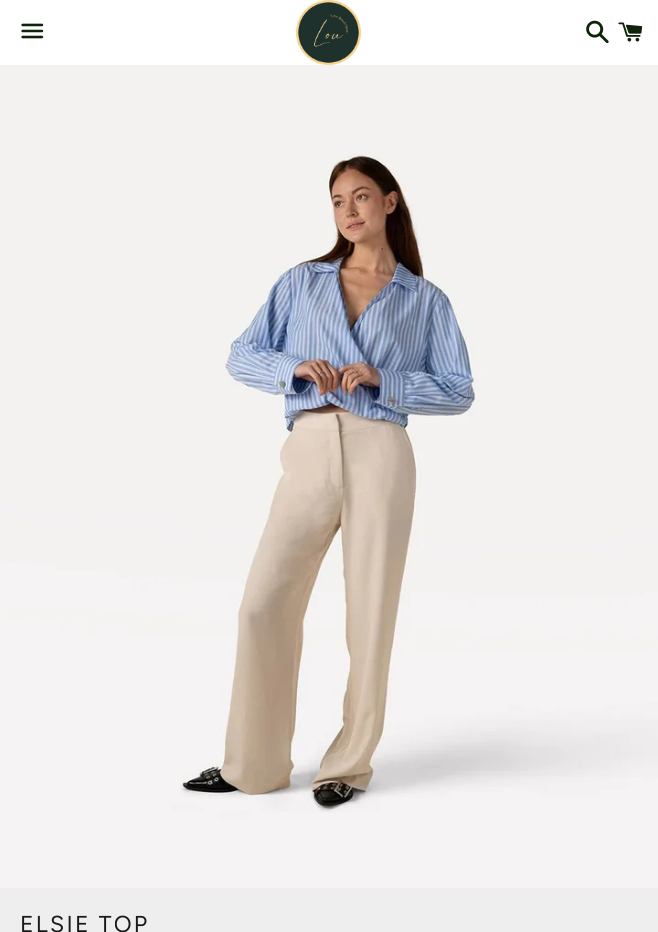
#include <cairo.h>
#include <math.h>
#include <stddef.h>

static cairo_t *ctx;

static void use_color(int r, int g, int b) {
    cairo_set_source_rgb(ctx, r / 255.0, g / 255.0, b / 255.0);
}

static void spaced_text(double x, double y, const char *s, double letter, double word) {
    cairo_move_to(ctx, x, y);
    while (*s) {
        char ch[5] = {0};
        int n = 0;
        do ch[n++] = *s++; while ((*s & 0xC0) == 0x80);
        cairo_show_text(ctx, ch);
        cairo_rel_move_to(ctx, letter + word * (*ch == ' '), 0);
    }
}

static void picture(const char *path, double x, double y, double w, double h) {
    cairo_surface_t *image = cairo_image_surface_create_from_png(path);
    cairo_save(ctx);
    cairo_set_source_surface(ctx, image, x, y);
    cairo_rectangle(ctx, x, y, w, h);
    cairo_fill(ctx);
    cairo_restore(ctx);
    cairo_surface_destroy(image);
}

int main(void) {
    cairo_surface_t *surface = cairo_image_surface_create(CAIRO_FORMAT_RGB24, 658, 932);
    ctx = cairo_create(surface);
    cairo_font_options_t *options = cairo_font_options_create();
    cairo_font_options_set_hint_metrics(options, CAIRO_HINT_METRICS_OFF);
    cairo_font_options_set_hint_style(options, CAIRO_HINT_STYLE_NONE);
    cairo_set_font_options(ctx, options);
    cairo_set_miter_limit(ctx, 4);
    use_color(238, 238, 238);
    cairo_paint(ctx);
    use_color(255, 255, 255);
    cairo_rectangle(ctx, 0, 0, 658, 65);
    cairo_fill(ctx);
    picture("img1.png", 21, 23, 23, 16);
    picture("img2.png", 296, 0, 65, 65);
    picture("img3.png", 586, 20, 23, 24);
    picture("img4.png", 618, 22, 25, 20);
    picture("img5.png", 0, 65, 658, 823);
    cairo_select_font_face(ctx, "Figtree", CAIRO_FONT_SLANT_NORMAL, CAIRO_FONT_WEIGHT_NORMAL);
    cairo_set_font_size(ctx, 23);
    use_color(26, 26, 26);
    spaced_text(20, 932, "ELSIE TOP", 2.25, 0);
    cairo_surface_write_to_png(surface, "result.png");
    cairo_font_options_destroy(options);
    cairo_destroy(ctx);
    cairo_surface_destroy(surface);
    return 0;
}
